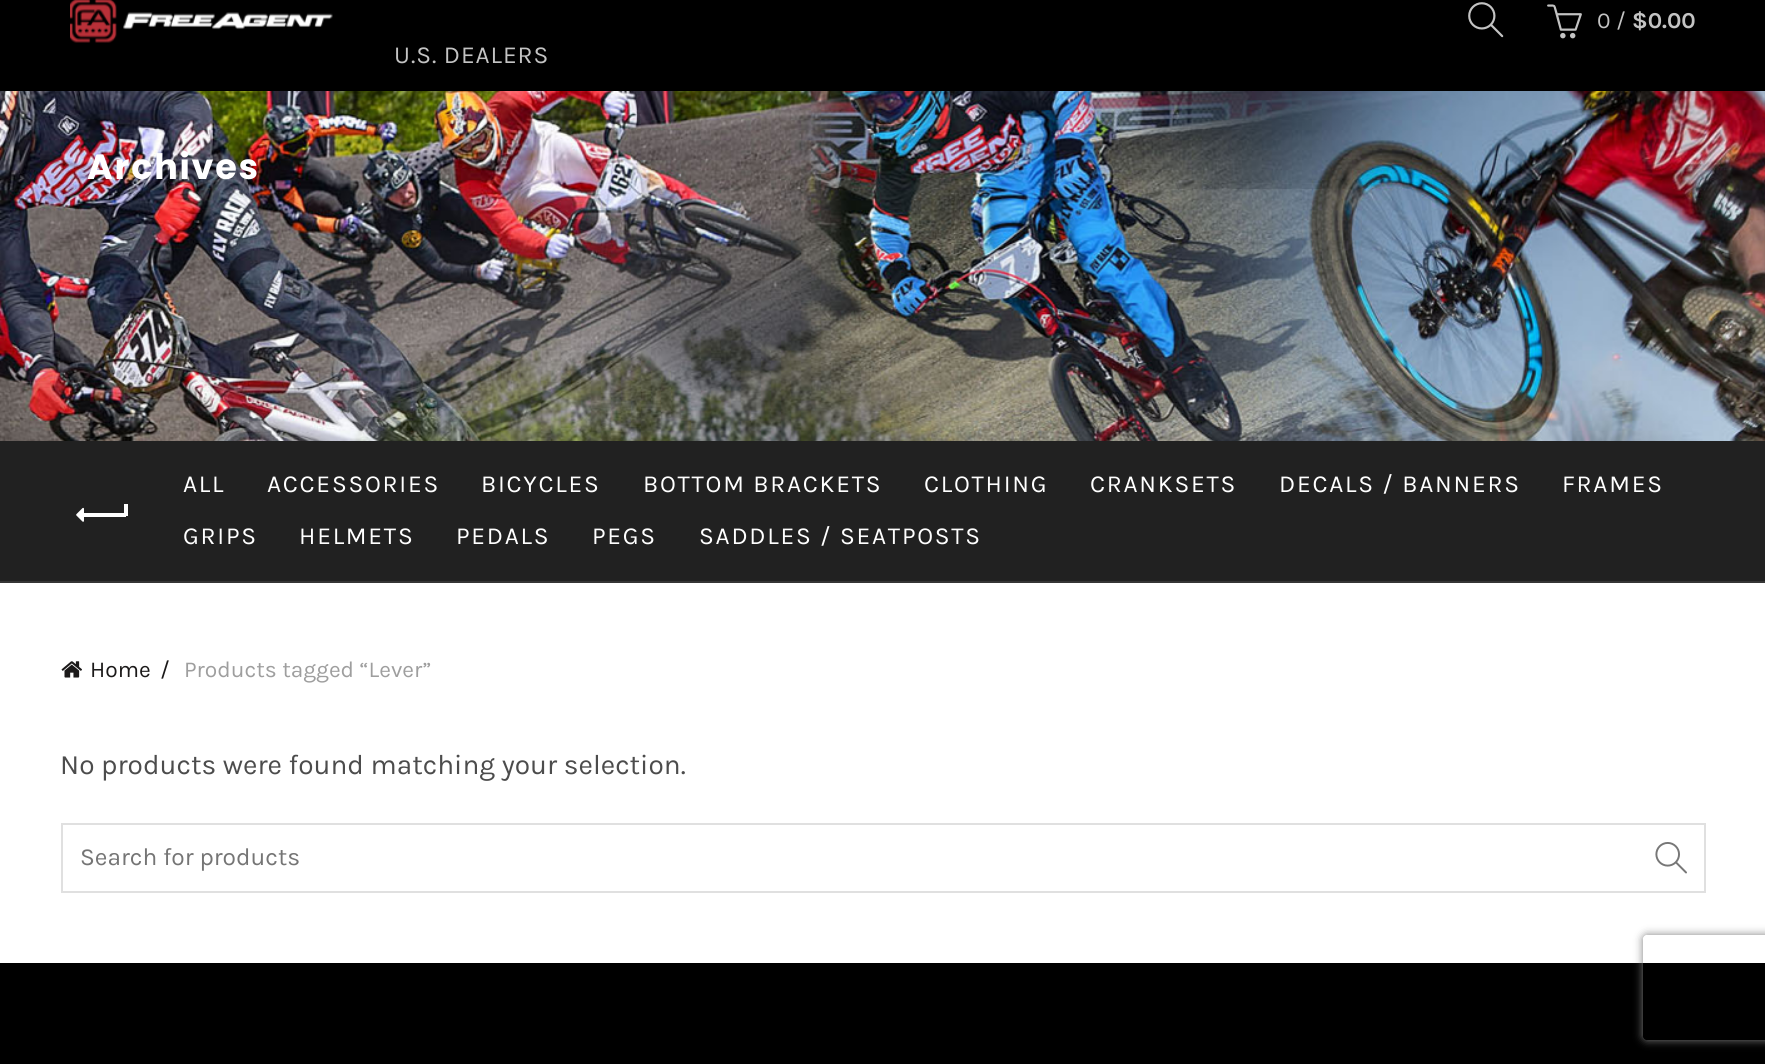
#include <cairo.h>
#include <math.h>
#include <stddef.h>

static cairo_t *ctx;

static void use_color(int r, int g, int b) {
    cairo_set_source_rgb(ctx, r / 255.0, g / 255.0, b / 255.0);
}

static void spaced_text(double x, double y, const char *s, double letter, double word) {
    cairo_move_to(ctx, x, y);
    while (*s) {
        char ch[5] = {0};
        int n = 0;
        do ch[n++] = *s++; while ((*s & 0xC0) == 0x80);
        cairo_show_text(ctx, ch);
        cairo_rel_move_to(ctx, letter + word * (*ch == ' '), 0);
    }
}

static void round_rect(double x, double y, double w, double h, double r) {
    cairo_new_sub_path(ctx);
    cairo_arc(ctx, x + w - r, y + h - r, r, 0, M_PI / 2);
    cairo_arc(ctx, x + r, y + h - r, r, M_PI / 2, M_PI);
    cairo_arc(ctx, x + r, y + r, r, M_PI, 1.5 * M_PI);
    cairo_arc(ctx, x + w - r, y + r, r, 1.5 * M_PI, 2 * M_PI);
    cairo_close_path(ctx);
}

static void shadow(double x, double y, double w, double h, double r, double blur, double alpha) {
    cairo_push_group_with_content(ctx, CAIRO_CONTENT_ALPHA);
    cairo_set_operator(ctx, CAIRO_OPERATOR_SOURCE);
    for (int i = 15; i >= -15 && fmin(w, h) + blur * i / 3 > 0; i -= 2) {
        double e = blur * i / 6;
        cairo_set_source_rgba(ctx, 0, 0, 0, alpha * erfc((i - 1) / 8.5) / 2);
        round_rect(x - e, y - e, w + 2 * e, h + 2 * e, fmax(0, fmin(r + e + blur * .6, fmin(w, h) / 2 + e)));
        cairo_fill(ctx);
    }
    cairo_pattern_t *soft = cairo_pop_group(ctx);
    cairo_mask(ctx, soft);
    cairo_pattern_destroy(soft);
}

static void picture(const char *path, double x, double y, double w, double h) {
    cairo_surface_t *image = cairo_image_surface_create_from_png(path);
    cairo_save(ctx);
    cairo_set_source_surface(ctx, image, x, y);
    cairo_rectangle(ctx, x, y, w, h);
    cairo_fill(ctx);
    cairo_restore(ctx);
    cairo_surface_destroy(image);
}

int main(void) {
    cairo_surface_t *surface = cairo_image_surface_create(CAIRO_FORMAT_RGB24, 1765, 1064);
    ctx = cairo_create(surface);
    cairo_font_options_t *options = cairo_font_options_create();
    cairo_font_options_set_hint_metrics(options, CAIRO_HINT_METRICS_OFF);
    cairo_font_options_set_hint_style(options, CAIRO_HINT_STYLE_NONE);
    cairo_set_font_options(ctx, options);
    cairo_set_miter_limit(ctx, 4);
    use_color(255, 255, 255);
    cairo_paint(ctx);
    use_color(0, 0, 0);
    cairo_rectangle(ctx, 0, 0, 1765, 441);
    cairo_fill(ctx);
    picture("img1.png", 70, 0, 263, 43);
    picture("img2.png", 1468, 2, 36, 36);
    picture("img3.png", 1547, 4, 35, 35);
    cairo_select_font_face(ctx, "Karla", CAIRO_FONT_SLANT_NORMAL, CAIRO_FONT_WEIGHT_NORMAL);
    cairo_set_font_size(ctx, 22.75);
    use_color(195, 195, 195);
    cairo_move_to(ctx, 1597, 28);
    cairo_show_text(ctx, "0 /");
    cairo_select_font_face(ctx, "Karla", CAIRO_FONT_SLANT_NORMAL, CAIRO_FONT_WEIGHT_BOLD);
    cairo_move_to(ctx, 1632, 28);
    cairo_show_text(ctx, "$0.00");
    cairo_select_font_face(ctx, "Karla", CAIRO_FONT_SLANT_NORMAL, CAIRO_FONT_WEIGHT_NORMAL);
    cairo_set_font_size(ctx, 24.5);
    spaced_text(394, 63, "U.S. DEALERS", 0.9, 0);
    picture("img4.png", 0, 91, 1765, 350);
    cairo_select_font_face(ctx, "Poppins", CAIRO_FONT_SLANT_NORMAL, CAIRO_FONT_WEIGHT_BOLD);
    cairo_set_font_size(ctx, 35);
    use_color(255, 255, 255);
    spaced_text(87, 179, "Archives", 1.75, 0);
    use_color(33, 33, 33);
    cairo_rectangle(ctx, 0, 441, 1765, 140);
    cairo_fill(ctx);
    use_color(53, 53, 53);
    cairo_rectangle(ctx, 0, 581, 1765, 2);
    cairo_fill(ctx);
    use_color(255, 255, 255);
    cairo_rectangle(ctx, 82, 513, 44, 4);
    cairo_fill(ctx);
    picture("img5.png", 76, 507, 8, 15);
    cairo_rectangle(ctx, 124, 504, 4, 12);
    cairo_fill(ctx);
    cairo_select_font_face(ctx, "Karla", CAIRO_FONT_SLANT_NORMAL, CAIRO_FONT_WEIGHT_NORMAL);
    cairo_set_font_size(ctx, 24.5);
    spaced_text(183, 492, "ALL", 1.75, 0);
    spaced_text(267, 492, "ACCESSORIES", 1.75, 0);
    spaced_text(481, 492, "BICYCLES", 1.75, 0);
    spaced_text(643, 492, "BOTTOM BRACKETS", 1.75, 0);
    spaced_text(924, 492, "CLOTHING", 1.75, 0);
    spaced_text(1090, 492, "CRANKSETS", 1.75, 0);
    spaced_text(1279, 492, "DECALS / BANNERS", 1.75, 0);
    spaced_text(1562, 492, "FRAMES", 1.75, 0);
    spaced_text(183, 544, "GRIPS", 1.75, 0);
    spaced_text(299, 544, "HELMETS", 1.75, 0);
    spaced_text(456, 544, "PEDALS", 1.75, 0);
    spaced_text(592, 544, "PEGS", 1.75, 0);
    spaced_text(699, 544, "SADDLES / SEATPOSTS", 1.75, 0);
    picture("img6.png", 61, 661, 21, 17);
    cairo_set_font_size(ctx, 22.75);
    use_color(27, 25, 25);
    cairo_move_to(ctx, 90, 677);
    cairo_show_text(ctx, "Home");
    cairo_move_to(ctx, 160, 677);
    cairo_show_text(ctx, "/");
    use_color(158, 158, 158);
    cairo_move_to(ctx, 184, 677);
    cairo_show_text(ctx, "Products tagged “Lever”");
    cairo_set_font_size(ctx, 28);
    use_color(76, 76, 76);
    cairo_move_to(ctx, 60, 774);
    cairo_show_text(ctx, "No products were found matching your selection.");
    cairo_rectangle(ctx, 62, 824, 1643, 68);
    use_color(224, 224, 224);
    cairo_stroke(ctx);
    cairo_set_font_size(ctx, 24.5);
    use_color(117, 117, 117);
    cairo_move_to(ctx, 80, 865);
    cairo_show_text(ctx, "Search for products");
    picture("img7.png", 1655, 842, 32, 32);
    use_color(0, 0, 0);
    cairo_rectangle(ctx, 0, 963, 1765, 101);
    cairo_fill(ctx);
    cairo_save(ctx);
    cairo_set_fill_rule(ctx, CAIRO_FILL_RULE_EVEN_ODD);
    cairo_new_path(ctx);
    cairo_move_to(ctx, 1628, 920);
    cairo_line_to(ctx, 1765, 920);
    cairo_line_to(ctx, 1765, 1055);
    cairo_line_to(ctx, 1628, 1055);
    cairo_close_path(ctx);
    cairo_move_to(ctx, 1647, 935);
    cairo_line_to(ctx, 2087, 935);
    cairo_curve_to(ctx, 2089, 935, 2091, 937, 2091, 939);
    cairo_line_to(ctx, 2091, 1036);
    cairo_curve_to(ctx, 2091, 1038, 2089, 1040, 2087, 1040);
    cairo_line_to(ctx, 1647, 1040);
    cairo_curve_to(ctx, 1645, 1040, 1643, 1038, 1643, 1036);
    cairo_line_to(ctx, 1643, 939);
    cairo_curve_to(ctx, 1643, 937, 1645, 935, 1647, 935);
    cairo_close_path(ctx);
    cairo_clip(ctx);
    use_color(128, 128, 128);
    shadow(1643, 935, 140, 105, 4, 4.5, 1);
    cairo_restore(ctx);
    cairo_surface_write_to_png(surface, "result.png");
    cairo_font_options_destroy(options);
    cairo_destroy(ctx);
    cairo_surface_destroy(surface);
    return 0;
}
